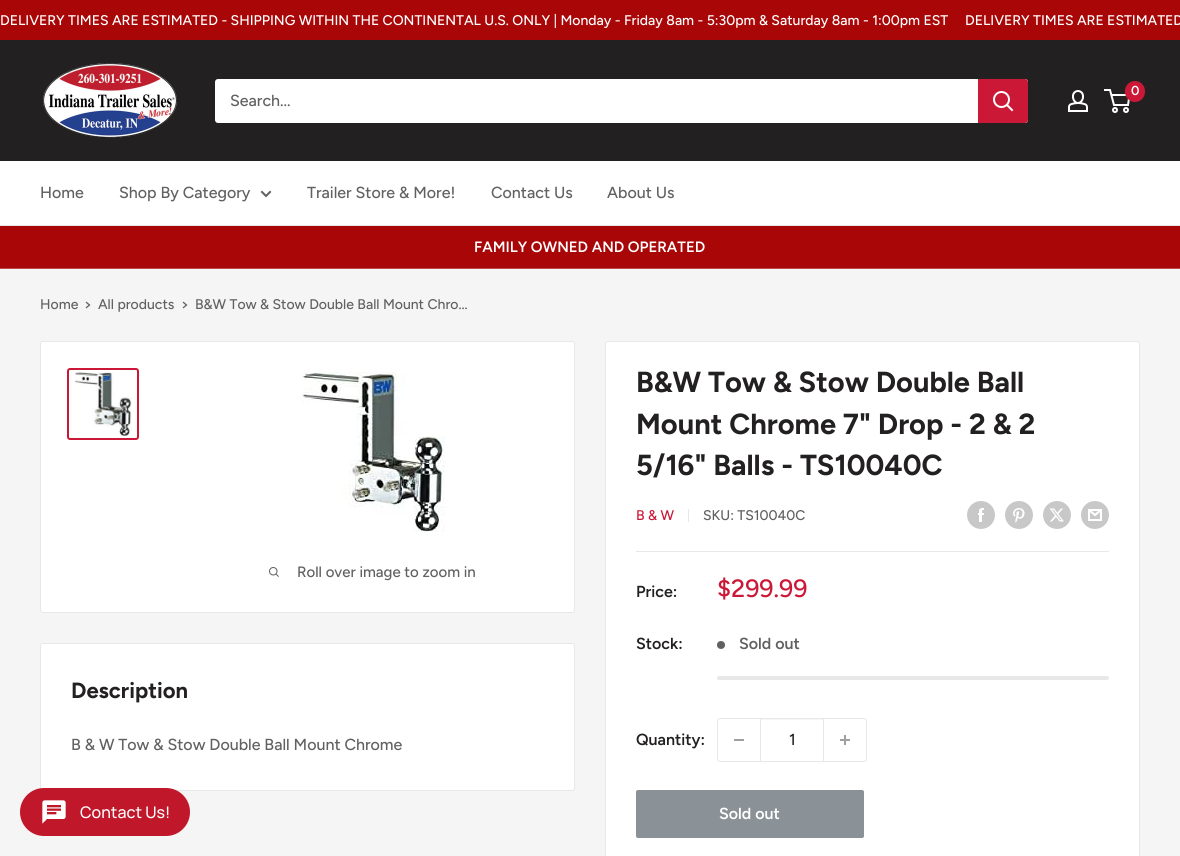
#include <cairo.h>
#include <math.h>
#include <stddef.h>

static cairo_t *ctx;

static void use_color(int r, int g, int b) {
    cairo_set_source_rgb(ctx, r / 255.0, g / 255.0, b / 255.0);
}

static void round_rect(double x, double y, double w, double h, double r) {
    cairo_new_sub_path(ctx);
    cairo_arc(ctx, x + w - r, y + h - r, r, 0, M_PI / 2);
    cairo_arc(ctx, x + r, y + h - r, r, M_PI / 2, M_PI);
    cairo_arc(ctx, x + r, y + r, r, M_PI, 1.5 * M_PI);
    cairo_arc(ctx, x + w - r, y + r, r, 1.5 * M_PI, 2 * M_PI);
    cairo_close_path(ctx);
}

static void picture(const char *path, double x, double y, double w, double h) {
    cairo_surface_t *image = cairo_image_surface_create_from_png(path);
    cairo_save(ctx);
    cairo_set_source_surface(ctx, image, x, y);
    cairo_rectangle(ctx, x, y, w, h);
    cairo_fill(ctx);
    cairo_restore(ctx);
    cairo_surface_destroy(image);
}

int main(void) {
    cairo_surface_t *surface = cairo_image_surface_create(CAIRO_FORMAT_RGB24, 1180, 856);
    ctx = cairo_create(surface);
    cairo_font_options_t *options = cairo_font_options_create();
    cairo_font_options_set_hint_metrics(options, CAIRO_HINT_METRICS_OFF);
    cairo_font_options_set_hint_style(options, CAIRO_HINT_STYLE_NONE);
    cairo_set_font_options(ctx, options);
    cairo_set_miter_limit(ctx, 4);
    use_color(245, 245, 245);
    cairo_paint(ctx);
    use_color(169, 7, 7);
    cairo_rectangle(ctx, 0, 0, 1180, 40);
    cairo_fill(ctx);
    cairo_select_font_face(ctx, "Figtree Medium", CAIRO_FONT_SLANT_NORMAL, CAIRO_FONT_WEIGHT_NORMAL);
    cairo_set_font_size(ctx, 14);
    use_color(255, 255, 255);
    cairo_move_to(ctx, 0, 25);
    cairo_show_text(ctx, "DELIVERY TIMES ARE ESTIMATED - SHIPPING WITHIN THE CONTINENTAL U.S. ONLY | Monday - Friday 8am - 5:30pm & Saturday 8am - 1:00pm EST");
    cairo_move_to(ctx, 965, 25);
    cairo_show_text(ctx, "DELIVERY TIMES ARE ESTIMATED");
    use_color(34, 32, 33);
    cairo_rectangle(ctx, 0, 40, 1180, 121);
    cairo_fill(ctx);
    picture("img1.png", 43, 63, 134, 75);
    picture("img2.png", 1068, 90, 20, 22);
    cairo_arc(ctx, 1115, 110, 2, 0, 2 * M_PI);
    use_color(255, 255, 255);
    cairo_stroke(ctx);
    cairo_arc(ctx, 1126, 110, 2, 0, 2 * M_PI);
    cairo_stroke(ctx);
    cairo_new_path(ctx);
    cairo_move_to(ctx, 1111.5, 95);
    cairo_line_to(ctx, 1129.5, 95);
    cairo_line_to(ctx, 1128, 105);
    cairo_line_to(ctx, 1114, 105);
    cairo_line_to(ctx, 1110, 90);
    cairo_line_to(ctx, 1104, 90);
    cairo_stroke(ctx);
    use_color(203, 24, 54);
    round_rect(1125, 81, 20, 21, 10);
    cairo_fill(ctx);
    cairo_select_font_face(ctx, "Figtree SemiBold", CAIRO_FONT_SLANT_NORMAL, CAIRO_FONT_WEIGHT_NORMAL);
    cairo_set_font_size(ctx, 13);
    use_color(255, 255, 255);
    cairo_move_to(ctx, 1131, 95);
    cairo_show_text(ctx, "0");
    round_rect(215, 79, 813, 44, 3);
    cairo_fill(ctx);
    cairo_select_font_face(ctx, "Figtree Medium", CAIRO_FONT_SLANT_NORMAL, CAIRO_FONT_WEIGHT_NORMAL);
    cairo_set_font_size(ctx, 16);
    use_color(97, 97, 97);
    cairo_move_to(ctx, 230, 106);
    cairo_show_text(ctx, "Search...");
    use_color(203, 24, 54);
    cairo_new_path(ctx);
    cairo_move_to(ctx, 978, 79);
    cairo_line_to(ctx, 1025, 79);
    cairo_curve_to(ctx, 1026.5, 79, 1028, 80.5, 1028, 82);
    cairo_line_to(ctx, 1028, 120);
    cairo_curve_to(ctx, 1028, 121.5, 1026.5, 123, 1025, 123);
    cairo_line_to(ctx, 978, 123);
    cairo_close_path(ctx);
    cairo_fill(ctx);
    cairo_new_path(ctx);
    cairo_move_to(ctx, 1012, 110);
    cairo_line_to(ctx, 1007, 105);
    use_color(255, 255, 255);
    cairo_set_line_cap(ctx, CAIRO_LINE_CAP_SQUARE);
    cairo_stroke(ctx);
    cairo_arc(ctx, 1001.5, 99.5, 7.5, 0, 2 * M_PI);
    cairo_set_line_cap(ctx, CAIRO_LINE_CAP_BUTT);
    cairo_stroke(ctx);
    cairo_rectangle(ctx, 0, 161, 1180, 64);
    cairo_fill(ctx);
    use_color(232, 232, 232);
    cairo_rectangle(ctx, 0, 225, 1180, 1);
    cairo_fill(ctx);
    use_color(97, 97, 97);
    cairo_move_to(ctx, 40, 198);
    cairo_show_text(ctx, "Home");
    cairo_move_to(ctx, 119, 198);
    cairo_show_text(ctx, "Shop By Category");
    cairo_new_path(ctx);
    cairo_move_to(ctx, 270, 192);
    cairo_line_to(ctx, 266, 196);
    cairo_line_to(ctx, 262, 192);
    cairo_set_line_cap(ctx, CAIRO_LINE_CAP_SQUARE);
    cairo_stroke(ctx);
    cairo_move_to(ctx, 307, 198);
    cairo_show_text(ctx, "Trailer Store & More!");
    cairo_move_to(ctx, 491, 198);
    cairo_show_text(ctx, "Contact Us");
    cairo_move_to(ctx, 607, 198);
    cairo_show_text(ctx, "About Us");
    use_color(169, 7, 7);
    cairo_rectangle(ctx, 0, 226, 1180, 42);
    cairo_fill(ctx);
    use_color(188, 75, 75);
    cairo_rectangle(ctx, 0, 268, 1180, 1);
    cairo_fill(ctx);
    cairo_select_font_face(ctx, "Figtree SemiBold", CAIRO_FONT_SLANT_NORMAL, CAIRO_FONT_WEIGHT_NORMAL);
    cairo_set_font_size(ctx, 15);
    use_color(255, 255, 255);
    cairo_move_to(ctx, 474, 252);
    cairo_show_text(ctx, "FAMILY OWNED AND OPERATED");
    cairo_select_font_face(ctx, "Figtree Medium", CAIRO_FONT_SLANT_NORMAL, CAIRO_FONT_WEIGHT_NORMAL);
    cairo_set_font_size(ctx, 14);
    use_color(97, 97, 97);
    cairo_move_to(ctx, 40, 309);
    cairo_show_text(ctx, "Home");
    cairo_new_path(ctx);
    cairo_move_to(ctx, 86.5, 302.5);
    cairo_line_to(ctx, 89.5, 305);
    cairo_line_to(ctx, 86.5, 307.5);
    cairo_set_line_width(ctx, 1.3);
    cairo_stroke(ctx);
    cairo_move_to(ctx, 98, 309);
    cairo_show_text(ctx, "All products");
    cairo_new_path(ctx);
    cairo_move_to(ctx, 183.5, 302.5);
    cairo_line_to(ctx, 186.5, 305);
    cairo_line_to(ctx, 183.5, 307.5);
    cairo_stroke(ctx);
    cairo_move_to(ctx, 195, 309);
    cairo_show_text(ctx, "B&W Tow & Stow Double Ball Mount Chro...");
    use_color(255, 255, 255);
    round_rect(40.5, 341.5, 534, 271, 2.5);
    cairo_fill_preserve(ctx);
    use_color(232, 232, 232);
    cairo_set_line_width(ctx, 1);
    cairo_set_line_cap(ctx, CAIRO_LINE_CAP_BUTT);
    cairo_stroke(ctx);
    round_rect(68, 369, 70, 70, 2);
    use_color(203, 24, 54);
    cairo_set_line_width(ctx, 2);
    cairo_stroke(ctx);
    picture("img3.png", 75, 372, 57, 64);
    picture("img4.png", 301, 372, 144, 160);
    picture("img5.png", 269, 567, 10, 10);
    cairo_set_font_size(ctx, 15);
    use_color(97, 97, 97);
    cairo_move_to(ctx, 297, 577);
    cairo_show_text(ctx, "Roll over image to zoom in");
    use_color(255, 255, 255);
    round_rect(605.5, 341.5, 534, 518, 2.5);
    cairo_fill_preserve(ctx);
    use_color(232, 232, 232);
    cairo_set_line_width(ctx, 1);
    cairo_stroke(ctx);
    cairo_select_font_face(ctx, "Figtree", CAIRO_FONT_SLANT_NORMAL, CAIRO_FONT_WEIGHT_BOLD);
    cairo_set_font_size(ctx, 29);
    use_color(34, 32, 33);
    cairo_move_to(ctx, 636, 392);
    cairo_show_text(ctx, "B&W Tow & Stow Double Ball");
    cairo_move_to(ctx, 636, 434);
    cairo_show_text(ctx, "Mount Chrome 7\" Drop - 2 & 2");
    cairo_move_to(ctx, 636, 475);
    cairo_show_text(ctx, "5/16\" Balls - TS10040C");
    cairo_select_font_face(ctx, "Figtree Medium", CAIRO_FONT_SLANT_NORMAL, CAIRO_FONT_WEIGHT_NORMAL);
    cairo_set_font_size(ctx, 14);
    use_color(203, 24, 54);
    cairo_move_to(ctx, 636, 520);
    cairo_show_text(ctx, "B & W");
    use_color(232, 232, 232);
    cairo_rectangle(ctx, 688, 509, 1, 13);
    cairo_fill(ctx);
    use_color(97, 97, 97);
    cairo_move_to(ctx, 703, 520);
    cairo_show_text(ctx, "SKU: TS10040C");
    picture("img6.png", 967, 501, 28, 28);
    picture("img7.png", 1005, 501, 28, 28);
    picture("img8.png", 1043, 501, 28, 28);
    picture("img9.png", 1081, 501, 28, 28);
    use_color(232, 232, 232);
    cairo_rectangle(ctx, 636, 551, 473, 1);
    cairo_fill(ctx);
    cairo_select_font_face(ctx, "Figtree SemiBold", CAIRO_FONT_SLANT_NORMAL, CAIRO_FONT_WEIGHT_NORMAL);
    cairo_set_font_size(ctx, 16);
    use_color(34, 32, 33);
    cairo_move_to(ctx, 636, 597);
    cairo_show_text(ctx, "Price:");
    cairo_select_font_face(ctx, "Figtree Medium", CAIRO_FONT_SLANT_NORMAL, CAIRO_FONT_WEIGHT_NORMAL);
    cairo_set_font_size(ctx, 25);
    use_color(203, 24, 54);
    cairo_move_to(ctx, 717, 597);
    cairo_show_text(ctx, "$299.99");
    cairo_select_font_face(ctx, "Figtree SemiBold", CAIRO_FONT_SLANT_NORMAL, CAIRO_FONT_WEIGHT_NORMAL);
    cairo_set_font_size(ctx, 16);
    use_color(34, 32, 33);
    cairo_move_to(ctx, 636, 649);
    cairo_show_text(ctx, "Stock:");
    use_color(97, 97, 97);
    cairo_new_path(ctx);
    cairo_arc(ctx, 721, 645, 4, 0, 2 * M_PI);
    cairo_fill(ctx);
    cairo_move_to(ctx, 739, 649);
    cairo_show_text(ctx, "Sold out");
    use_color(232, 232, 232);
    round_rect(717, 676, 392, 4, 2);
    cairo_fill(ctx);
    use_color(34, 32, 33);
    cairo_move_to(ctx, 636, 745);
    cairo_show_text(ctx, "Quantity:");
    round_rect(717.5, 718.5, 149, 43, 2.5);
    use_color(232, 232, 232);
    cairo_stroke(ctx);
    use_color(160, 160, 160);
    cairo_rectangle(ctx, 734, 739, 10, 2);
    cairo_fill(ctx);
    use_color(246, 246, 246);
    cairo_rectangle(ctx, 761, 719, 62, 1);
    cairo_fill(ctx);
    use_color(232, 232, 232);
    cairo_rectangle(ctx, 823, 719, 1, 42);
    cairo_fill(ctx);
    cairo_rectangle(ctx, 760, 719, 1, 42);
    cairo_fill(ctx);
    cairo_select_font_face(ctx, "Figtree Medium", CAIRO_FONT_SLANT_NORMAL, CAIRO_FONT_WEIGHT_NORMAL);
    use_color(34, 32, 33);
    cairo_move_to(ctx, 789, 745);
    cairo_show_text(ctx, "1");
    picture("img10.png", 840, 735, 10, 10);
    use_color(138, 146, 151);
    round_rect(636.5, 790.5, 227, 47, 1.5);
    cairo_fill_preserve(ctx);
    cairo_stroke(ctx);
    cairo_select_font_face(ctx, "Figtree SemiBold", CAIRO_FONT_SLANT_NORMAL, CAIRO_FONT_WEIGHT_NORMAL);
    use_color(255, 255, 255);
    cairo_move_to(ctx, 719, 819);
    cairo_show_text(ctx, "Sold out");
    round_rect(40.5, 643.5, 534, 147, 2.5);
    cairo_fill_preserve(ctx);
    use_color(232, 232, 232);
    cairo_stroke(ctx);
    cairo_select_font_face(ctx, "Figtree", CAIRO_FONT_SLANT_NORMAL, CAIRO_FONT_WEIGHT_BOLD);
    cairo_set_font_size(ctx, 22);
    use_color(34, 32, 33);
    cairo_move_to(ctx, 71, 698);
    cairo_show_text(ctx, "Description");
    cairo_select_font_face(ctx, "Figtree Medium", CAIRO_FONT_SLANT_NORMAL, CAIRO_FONT_WEIGHT_NORMAL);
    cairo_set_font_size(ctx, 16);
    use_color(97, 97, 97);
    cairo_move_to(ctx, 71, 750);
    cairo_show_text(ctx, "B & W Tow & Stow Double Ball Mount Chrome");
    use_color(192, 24, 42);
    round_rect(20, 788, 170, 48, 24);
    cairo_fill(ctx);
    picture("img11.png", 42, 800, 24, 24);
    cairo_select_font_face(ctx, "Manrope Medium", CAIRO_FONT_SLANT_NORMAL, CAIRO_FONT_WEIGHT_NORMAL);
    use_color(255, 255, 255);
    cairo_move_to(ctx, 80, 818);
    cairo_show_text(ctx, "Contact Us!");
    cairo_surface_write_to_png(surface, "result.png");
    cairo_font_options_destroy(options);
    cairo_destroy(ctx);
    cairo_surface_destroy(surface);
    return 0;
}
